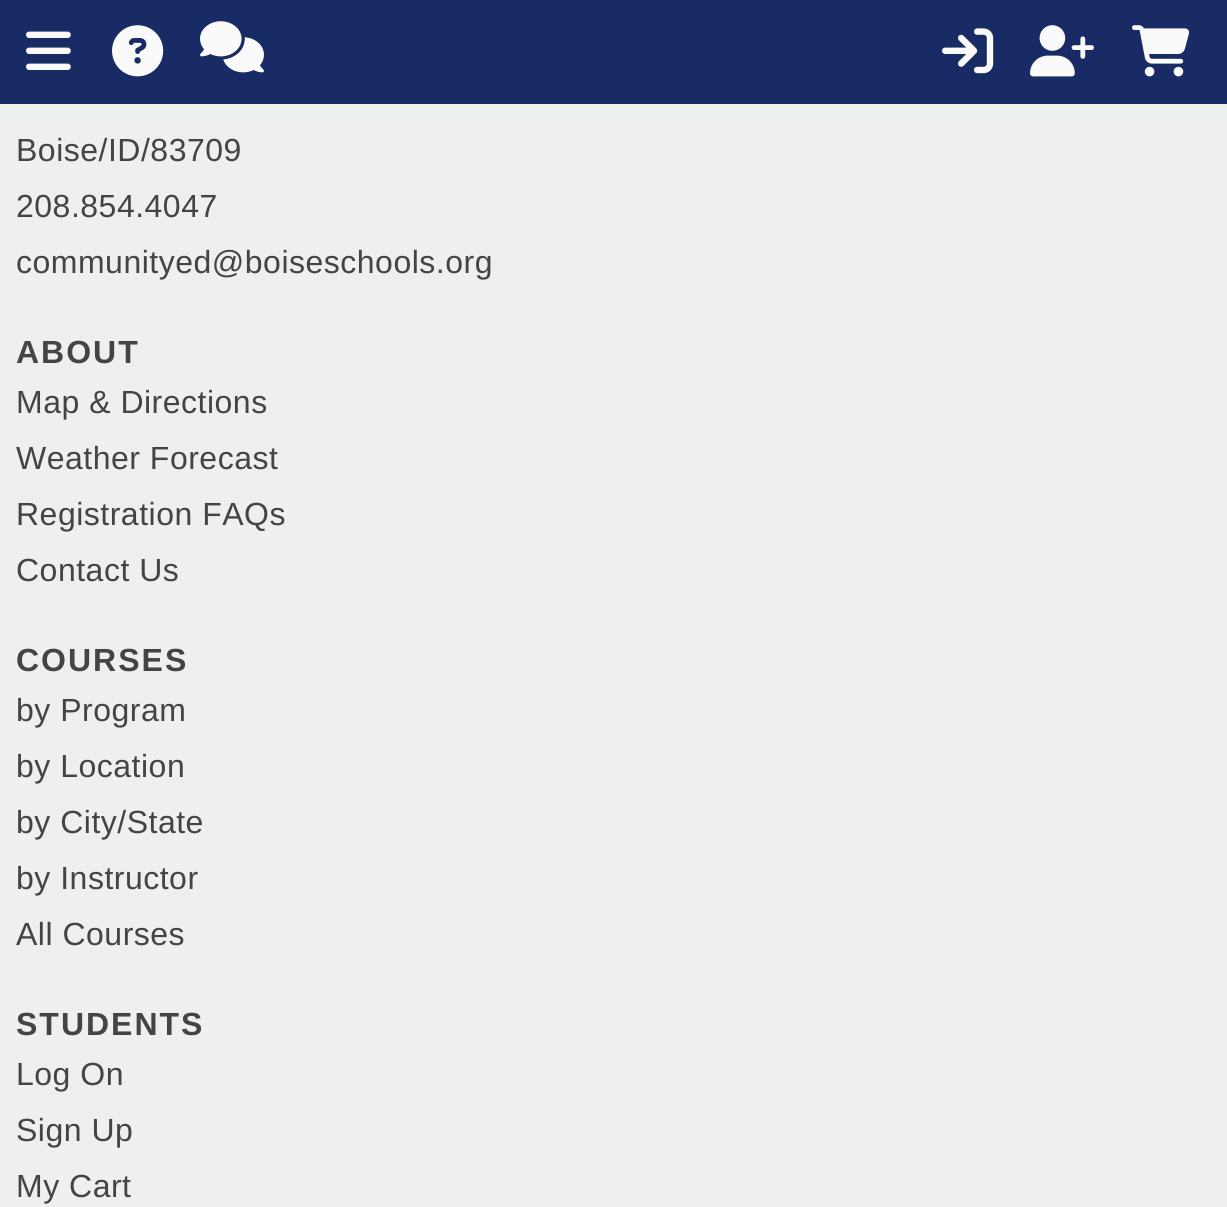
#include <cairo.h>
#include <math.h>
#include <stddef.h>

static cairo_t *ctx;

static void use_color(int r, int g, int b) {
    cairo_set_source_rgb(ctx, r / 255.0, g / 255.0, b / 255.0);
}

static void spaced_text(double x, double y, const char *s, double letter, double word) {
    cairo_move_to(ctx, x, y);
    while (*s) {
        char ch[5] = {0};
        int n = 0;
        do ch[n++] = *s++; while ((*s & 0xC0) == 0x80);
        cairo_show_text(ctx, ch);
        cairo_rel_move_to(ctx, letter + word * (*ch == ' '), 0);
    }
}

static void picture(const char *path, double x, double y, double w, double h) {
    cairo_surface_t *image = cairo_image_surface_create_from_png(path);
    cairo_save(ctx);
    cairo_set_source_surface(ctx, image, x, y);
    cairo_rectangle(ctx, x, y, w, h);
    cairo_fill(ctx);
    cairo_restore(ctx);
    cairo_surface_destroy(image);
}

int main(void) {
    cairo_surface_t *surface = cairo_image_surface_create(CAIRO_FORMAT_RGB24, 1227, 1207);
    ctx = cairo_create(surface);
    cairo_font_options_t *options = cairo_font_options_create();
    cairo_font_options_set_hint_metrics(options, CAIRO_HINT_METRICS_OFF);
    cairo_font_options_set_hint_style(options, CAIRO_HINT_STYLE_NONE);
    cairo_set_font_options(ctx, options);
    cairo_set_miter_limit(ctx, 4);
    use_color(238, 240, 240);
    cairo_paint(ctx);
    use_color(25, 43, 101);
    cairo_rectangle(ctx, 0, 0, 1227, 104);
    cairo_fill(ctx);
    picture("img1.png", 26, 31, 45, 39);
    picture("img2.png", 112, 25, 52, 52);
    picture("img3.png", 200, 21, 64, 52);
    picture("img4.png", 942, 28, 52, 46);
    picture("img5.png", 1030, 25, 64, 52);
    picture("img6.png", 1132, 25, 58, 52);
    cairo_select_font_face(ctx, "Liberation Sans", CAIRO_FONT_SLANT_NORMAL, CAIRO_FONT_WEIGHT_NORMAL);
    cairo_set_font_size(ctx, 32);
    use_color(68, 68, 68);
    spaced_text(16, 161, "Boise/ID/83709", 0.5, 0);
    spaced_text(16, 217, "208.854.4047", 0.5, 0);
    spaced_text(16, 273, "communityed@boiseschools.org", 0.5, 0);
    cairo_select_font_face(ctx, "Liberation Sans", CAIRO_FONT_SLANT_NORMAL, CAIRO_FONT_WEIGHT_BOLD);
    spaced_text(16, 363, "ABOUT", 2, 0);
    cairo_select_font_face(ctx, "Liberation Sans", CAIRO_FONT_SLANT_NORMAL, CAIRO_FONT_WEIGHT_NORMAL);
    spaced_text(16, 413, "Map & Directions", 0.5, 0);
    spaced_text(16, 469, "Weather Forecast", 0.5, 0);
    spaced_text(16, 525, "Registration FAQs", 0.5, 0);
    spaced_text(16, 581, "Contact Us", 0.5, 0);
    cairo_select_font_face(ctx, "Liberation Sans", CAIRO_FONT_SLANT_NORMAL, CAIRO_FONT_WEIGHT_BOLD);
    spaced_text(16, 671, "COURSES", 2, 0);
    cairo_select_font_face(ctx, "Liberation Sans", CAIRO_FONT_SLANT_NORMAL, CAIRO_FONT_WEIGHT_NORMAL);
    spaced_text(16, 721, "by Program", 0.5, 0);
    spaced_text(16, 777, "by Location", 0.5, 0);
    spaced_text(16, 833, "by City/State", 0.5, 0);
    spaced_text(16, 889, "by Instructor", 0.5, 0);
    spaced_text(16, 945, "All Courses", 0.5, 0);
    cairo_select_font_face(ctx, "Liberation Sans", CAIRO_FONT_SLANT_NORMAL, CAIRO_FONT_WEIGHT_BOLD);
    spaced_text(16, 1035, "STUDENTS", 2, 0);
    cairo_select_font_face(ctx, "Liberation Sans", CAIRO_FONT_SLANT_NORMAL, CAIRO_FONT_WEIGHT_NORMAL);
    spaced_text(16, 1085, "Log On", 0.5, 0);
    spaced_text(16, 1141, "Sign Up", 0.5, 0);
    spaced_text(16, 1197, "My Cart", 0.5, 0);
    cairo_surface_write_to_png(surface, "result.png");
    cairo_font_options_destroy(options);
    cairo_destroy(ctx);
    cairo_surface_destroy(surface);
    return 0;
}
